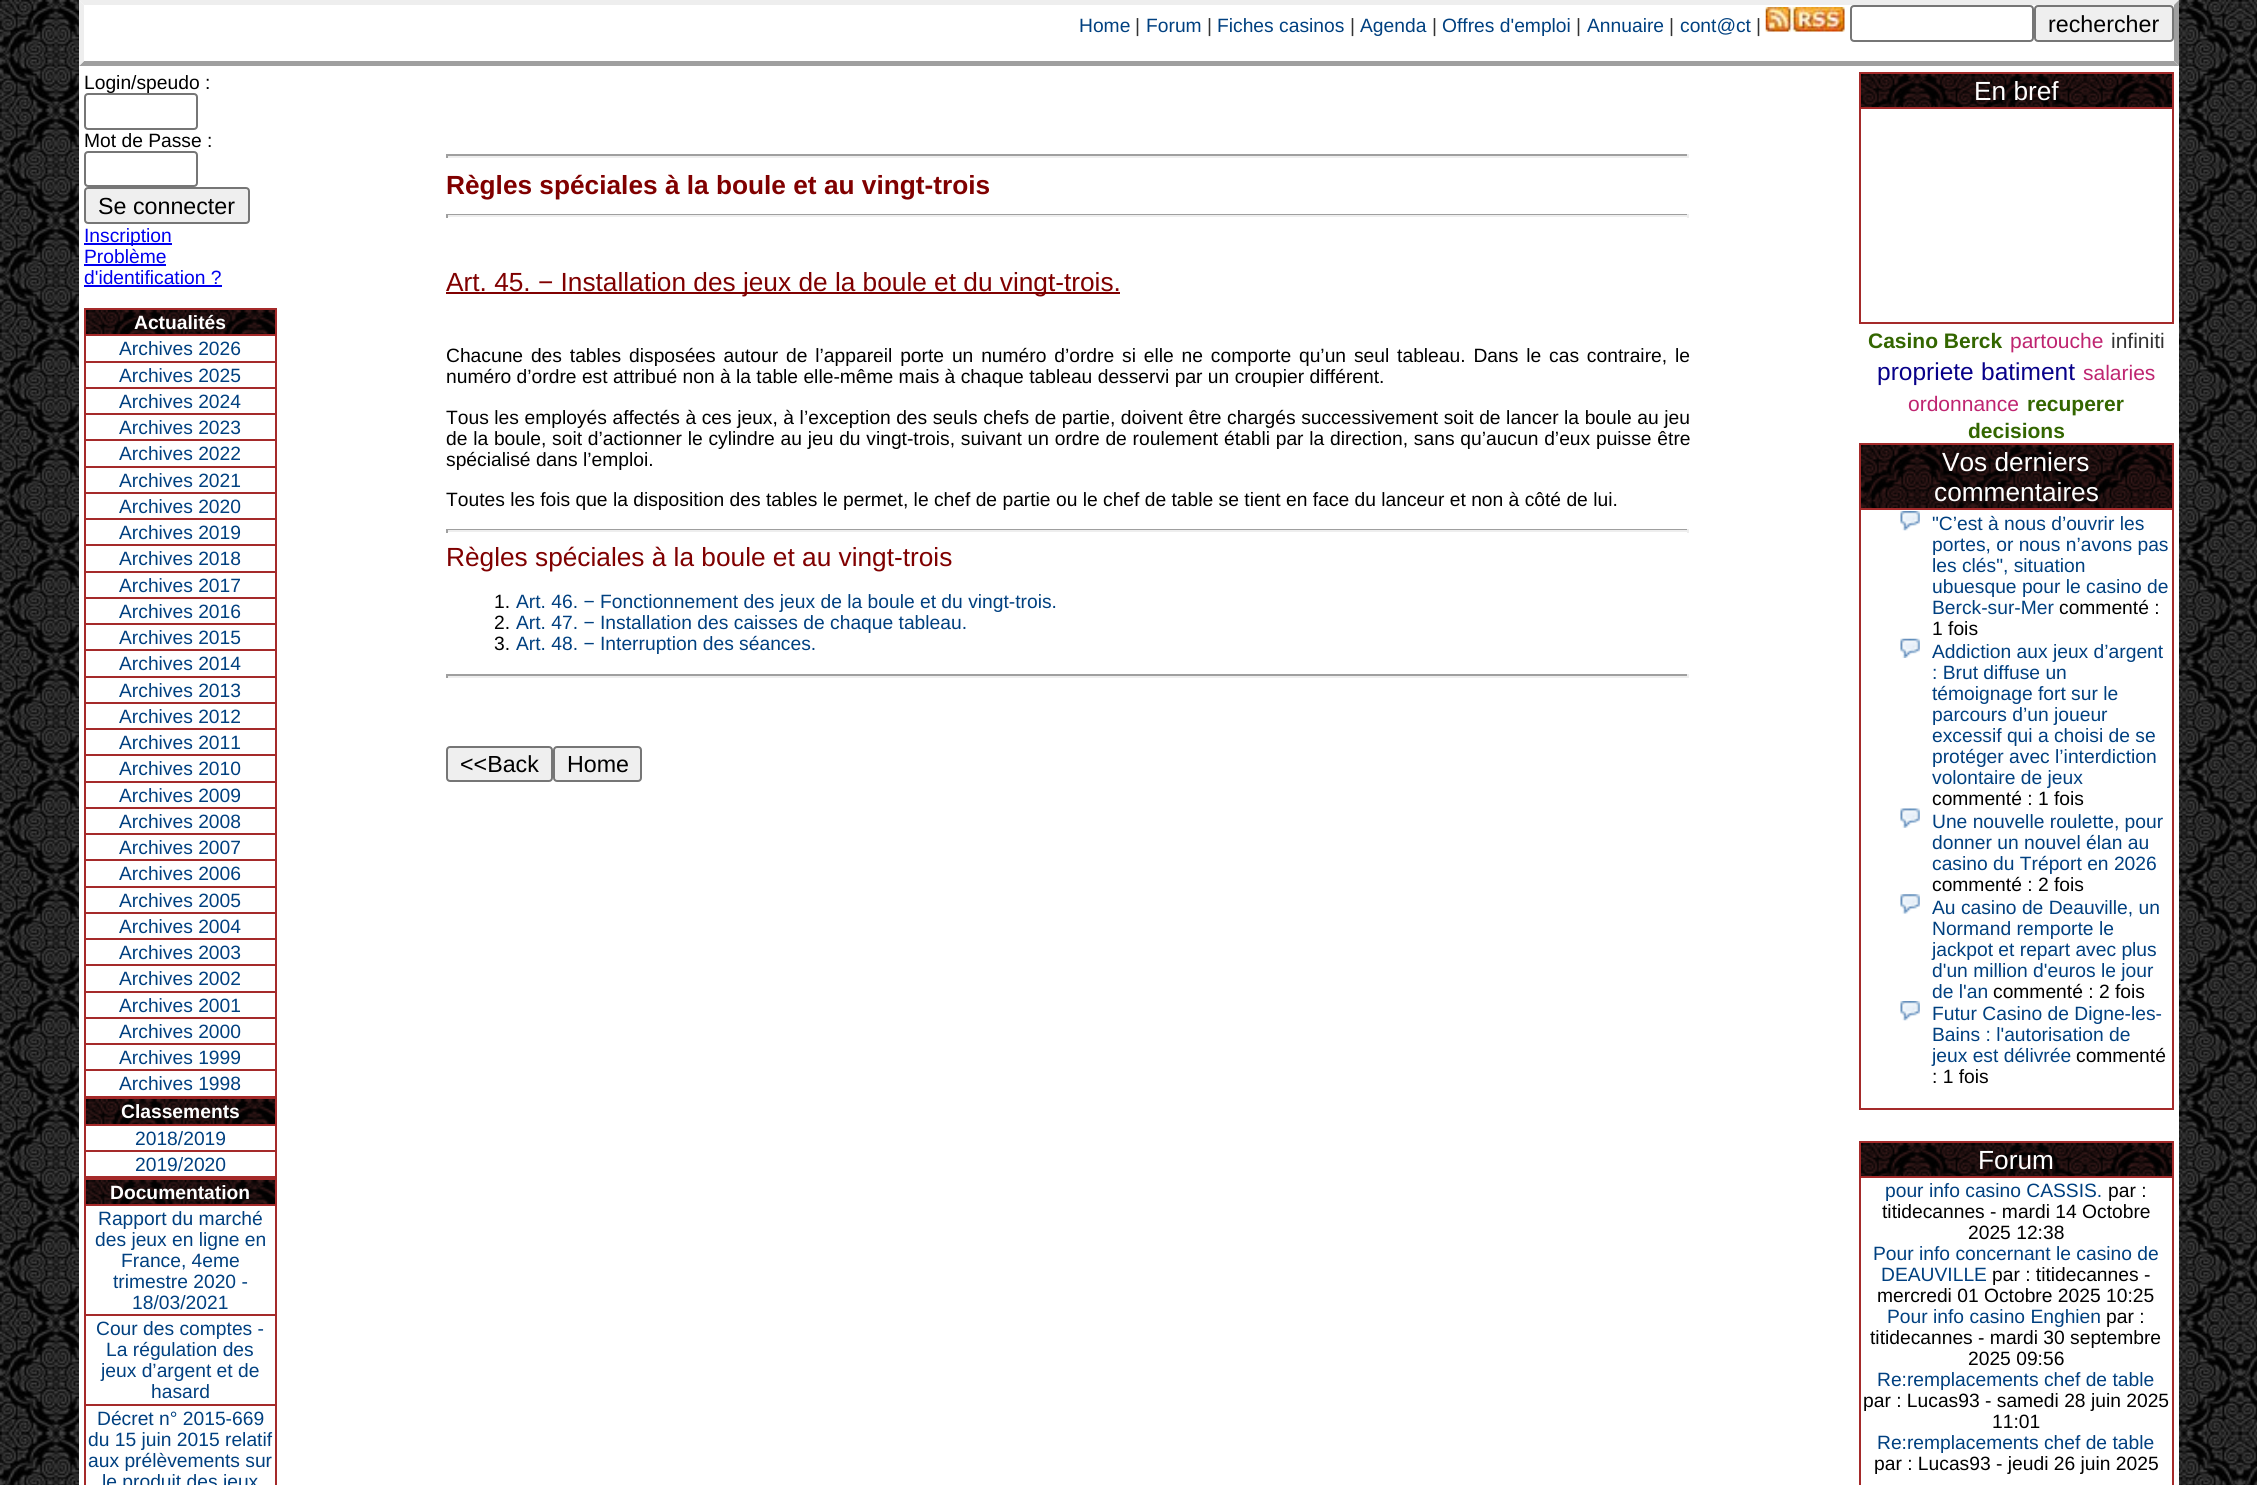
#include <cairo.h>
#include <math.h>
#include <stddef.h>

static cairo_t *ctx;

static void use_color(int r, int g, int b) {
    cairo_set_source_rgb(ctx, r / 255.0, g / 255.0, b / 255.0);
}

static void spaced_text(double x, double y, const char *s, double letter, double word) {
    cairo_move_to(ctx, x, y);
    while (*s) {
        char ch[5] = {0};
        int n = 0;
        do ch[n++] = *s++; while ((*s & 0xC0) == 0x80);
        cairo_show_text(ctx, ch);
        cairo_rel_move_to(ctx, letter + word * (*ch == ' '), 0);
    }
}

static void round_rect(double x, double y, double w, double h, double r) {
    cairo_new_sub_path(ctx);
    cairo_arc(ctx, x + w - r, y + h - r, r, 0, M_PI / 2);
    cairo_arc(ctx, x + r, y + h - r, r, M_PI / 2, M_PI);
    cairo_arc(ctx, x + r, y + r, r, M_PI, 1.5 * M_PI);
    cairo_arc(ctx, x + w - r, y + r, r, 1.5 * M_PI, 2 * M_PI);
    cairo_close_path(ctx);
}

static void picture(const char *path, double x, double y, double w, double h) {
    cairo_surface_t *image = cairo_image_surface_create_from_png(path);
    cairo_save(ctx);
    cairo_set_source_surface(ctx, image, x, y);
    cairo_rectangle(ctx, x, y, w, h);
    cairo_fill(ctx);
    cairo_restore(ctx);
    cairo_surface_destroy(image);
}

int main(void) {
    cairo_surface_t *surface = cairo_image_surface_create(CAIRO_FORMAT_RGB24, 2257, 1485);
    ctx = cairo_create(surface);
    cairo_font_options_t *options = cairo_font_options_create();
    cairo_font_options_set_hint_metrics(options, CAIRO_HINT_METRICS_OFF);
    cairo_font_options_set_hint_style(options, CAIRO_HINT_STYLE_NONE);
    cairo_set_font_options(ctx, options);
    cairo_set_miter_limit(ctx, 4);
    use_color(255, 255, 255);
    cairo_paint(ctx);
    picture("img1.png", 0, 0, 2257, 1485);
    use_color(255, 255, 255);
    cairo_rectangle(ctx, 79, 0, 2100, 1485);
    cairo_fill(ctx);
    use_color(238, 238, 238);
    cairo_new_path(ctx);
    cairo_move_to(ctx, 79, 0);
    cairo_line_to(ctx, 2179, 0);
    cairo_line_to(ctx, 2174, 5);
    cairo_line_to(ctx, 84, 5);
    cairo_close_path(ctx);
    cairo_fill(ctx);
    use_color(159, 159, 159);
    cairo_new_path(ctx);
    cairo_move_to(ctx, 2179, 0);
    cairo_line_to(ctx, 2179, 66);
    cairo_line_to(ctx, 2174, 61);
    cairo_line_to(ctx, 2174, 5);
    cairo_close_path(ctx);
    cairo_fill(ctx);
    cairo_new_path(ctx);
    cairo_move_to(ctx, 2179, 66);
    cairo_line_to(ctx, 79, 66);
    cairo_line_to(ctx, 84, 61);
    cairo_line_to(ctx, 2174, 61);
    cairo_close_path(ctx);
    cairo_fill(ctx);
    use_color(238, 238, 238);
    cairo_new_path(ctx);
    cairo_move_to(ctx, 79, 66);
    cairo_line_to(ctx, 79, 0);
    cairo_line_to(ctx, 84, 5);
    cairo_line_to(ctx, 84, 61);
    cairo_close_path(ctx);
    cairo_fill(ctx);
    cairo_select_font_face(ctx, "Liberation Sans", CAIRO_FONT_SLANT_NORMAL, CAIRO_FONT_WEIGHT_NORMAL);
    cairo_set_font_size(ctx, 19.25);
    use_color(0, 64, 128);
    cairo_move_to(ctx, 1079, 32);
    cairo_show_text(ctx, "Home");
    use_color(51, 51, 51);
    cairo_move_to(ctx, 1135, 32);
    cairo_show_text(ctx, "|");
    use_color(0, 64, 128);
    cairo_move_to(ctx, 1146, 32);
    cairo_show_text(ctx, "Forum");
    use_color(51, 51, 51);
    cairo_move_to(ctx, 1207, 32);
    cairo_show_text(ctx, "|");
    use_color(0, 64, 128);
    cairo_move_to(ctx, 1217, 32);
    cairo_show_text(ctx, "Fiches casinos");
    use_color(51, 51, 51);
    cairo_move_to(ctx, 1350, 32);
    cairo_show_text(ctx, "|");
    use_color(0, 64, 128);
    cairo_move_to(ctx, 1360, 32);
    cairo_show_text(ctx, "Agenda");
    use_color(51, 51, 51);
    cairo_move_to(ctx, 1432, 32);
    cairo_show_text(ctx, "|");
    use_color(0, 64, 128);
    cairo_move_to(ctx, 1442, 32);
    cairo_show_text(ctx, "Offres d'emploi");
    use_color(51, 51, 51);
    cairo_move_to(ctx, 1576, 32);
    cairo_show_text(ctx, "|");
    use_color(0, 64, 128);
    cairo_move_to(ctx, 1587, 32);
    cairo_show_text(ctx, "Annuaire");
    use_color(51, 51, 51);
    cairo_move_to(ctx, 1669, 32);
    cairo_show_text(ctx, "|");
    use_color(0, 64, 128);
    cairo_move_to(ctx, 1680, 32);
    cairo_show_text(ctx, "cont@ct");
    use_color(51, 51, 51);
    cairo_move_to(ctx, 1756, 32);
    cairo_show_text(ctx, "|");
    picture("img2.png", 1765, 7, 80, 25);
    round_rect(1851, 6, 182, 35, 3);
    use_color(118, 118, 118);
    cairo_stroke(ctx);
    use_color(239, 239, 239);
    round_rect(2035, 6, 138, 35, 3);
    cairo_fill_preserve(ctx);
    use_color(118, 118, 118);
    cairo_stroke(ctx);
    cairo_set_font_size(ctx, 23.25);
    use_color(0, 0, 0);
    cairo_move_to(ctx, 2048, 32);
    cairo_show_text(ctx, "rechercher");
    cairo_set_font_size(ctx, 19.25);
    cairo_move_to(ctx, 84, 89);
    cairo_show_text(ctx, "Login/speudo :");
    round_rect(85, 94, 112, 35, 3);
    use_color(118, 118, 118);
    cairo_stroke(ctx);
    use_color(0, 0, 0);
    cairo_move_to(ctx, 84, 147);
    cairo_show_text(ctx, "Mot de Passe :");
    round_rect(85, 152, 112, 34, 3);
    use_color(118, 118, 118);
    cairo_stroke(ctx);
    use_color(239, 239, 239);
    round_rect(85, 188, 164, 35, 3);
    cairo_fill_preserve(ctx);
    use_color(118, 118, 118);
    cairo_stroke(ctx);
    cairo_set_font_size(ctx, 23.25);
    use_color(0, 0, 0);
    cairo_move_to(ctx, 98, 214);
    cairo_show_text(ctx, "Se connecter");
    use_color(0, 0, 238);
    cairo_rectangle(ctx, 84, 243, 88, 2);
    cairo_fill(ctx);
    cairo_set_font_size(ctx, 19.25);
    cairo_move_to(ctx, 84, 242);
    cairo_show_text(ctx, "Inscription");
    cairo_move_to(ctx, 84, 263);
    cairo_show_text(ctx, "Problème");
    cairo_rectangle(ctx, 84, 264, 82, 2);
    cairo_fill(ctx);
    cairo_move_to(ctx, 84, 284);
    cairo_show_text(ctx, "d'identification ?");
    cairo_rectangle(ctx, 84, 285, 138, 2);
    cairo_fill(ctx);
    use_color(165, 42, 42);
    cairo_rectangle(ctx, 84, 308, 193, 2);
    cairo_fill(ctx);
    cairo_rectangle(ctx, 275, 308, 2, 789);
    cairo_fill(ctx);
    cairo_rectangle(ctx, 84, 1096, 193, 3);
    cairo_fill(ctx);
    cairo_rectangle(ctx, 84, 308, 2, 789);
    cairo_fill(ctx);
    picture("img3.png", 86, 310, 189, 24);
    cairo_select_font_face(ctx, "Liberation Sans", CAIRO_FONT_SLANT_NORMAL, CAIRO_FONT_WEIGHT_BOLD);
    use_color(255, 255, 255);
    cairo_move_to(ctx, 134, 329);
    cairo_show_text(ctx, "Actualités");
    use_color(165, 42, 42);
    cairo_rectangle(ctx, 84, 334, 193, 2);
    cairo_fill(ctx);
    cairo_select_font_face(ctx, "Liberation Sans", CAIRO_FONT_SLANT_NORMAL, CAIRO_FONT_WEIGHT_NORMAL);
    use_color(0, 64, 128);
    cairo_move_to(ctx, 119, 355);
    cairo_show_text(ctx, "Archives 2026");
    use_color(165, 42, 42);
    cairo_rectangle(ctx, 84, 361, 193, 2);
    cairo_fill(ctx);
    use_color(0, 64, 128);
    cairo_move_to(ctx, 119, 382);
    cairo_show_text(ctx, "Archives 2025");
    use_color(165, 42, 42);
    cairo_rectangle(ctx, 84, 387, 193, 2);
    cairo_fill(ctx);
    use_color(0, 64, 128);
    cairo_move_to(ctx, 119, 408);
    cairo_show_text(ctx, "Archives 2024");
    use_color(165, 42, 42);
    cairo_rectangle(ctx, 84, 413, 193, 2);
    cairo_fill(ctx);
    use_color(0, 64, 128);
    cairo_move_to(ctx, 119, 434);
    cairo_show_text(ctx, "Archives 2023");
    use_color(165, 42, 42);
    cairo_rectangle(ctx, 84, 439, 193, 2);
    cairo_fill(ctx);
    use_color(0, 64, 128);
    cairo_move_to(ctx, 119, 460);
    cairo_show_text(ctx, "Archives 2022");
    use_color(165, 42, 42);
    cairo_rectangle(ctx, 84, 466, 193, 2);
    cairo_fill(ctx);
    use_color(0, 64, 128);
    cairo_move_to(ctx, 119, 487);
    cairo_show_text(ctx, "Archives 2021");
    use_color(165, 42, 42);
    cairo_rectangle(ctx, 84, 492, 193, 2);
    cairo_fill(ctx);
    use_color(0, 64, 128);
    cairo_move_to(ctx, 119, 513);
    cairo_show_text(ctx, "Archives 2020");
    use_color(165, 42, 42);
    cairo_rectangle(ctx, 84, 518, 193, 2);
    cairo_fill(ctx);
    use_color(0, 64, 128);
    cairo_move_to(ctx, 119, 539);
    cairo_show_text(ctx, "Archives 2019");
    use_color(165, 42, 42);
    cairo_rectangle(ctx, 84, 544, 193, 2);
    cairo_fill(ctx);
    use_color(0, 64, 128);
    cairo_move_to(ctx, 119, 565);
    cairo_show_text(ctx, "Archives 2018");
    use_color(165, 42, 42);
    cairo_rectangle(ctx, 84, 571, 193, 2);
    cairo_fill(ctx);
    use_color(0, 64, 128);
    cairo_move_to(ctx, 119, 592);
    cairo_show_text(ctx, "Archives 2017");
    use_color(165, 42, 42);
    cairo_rectangle(ctx, 84, 597, 193, 2);
    cairo_fill(ctx);
    use_color(0, 64, 128);
    cairo_move_to(ctx, 119, 618);
    cairo_show_text(ctx, "Archives 2016");
    use_color(165, 42, 42);
    cairo_rectangle(ctx, 84, 623, 193, 2);
    cairo_fill(ctx);
    use_color(0, 64, 128);
    cairo_move_to(ctx, 119, 644);
    cairo_show_text(ctx, "Archives 2015");
    use_color(165, 42, 42);
    cairo_rectangle(ctx, 84, 649, 193, 2);
    cairo_fill(ctx);
    use_color(0, 64, 128);
    cairo_move_to(ctx, 119, 670);
    cairo_show_text(ctx, "Archives 2014");
    use_color(165, 42, 42);
    cairo_rectangle(ctx, 84, 676, 193, 2);
    cairo_fill(ctx);
    use_color(0, 64, 128);
    cairo_move_to(ctx, 119, 697);
    cairo_show_text(ctx, "Archives 2013");
    use_color(165, 42, 42);
    cairo_rectangle(ctx, 84, 702, 193, 2);
    cairo_fill(ctx);
    use_color(0, 64, 128);
    cairo_move_to(ctx, 119, 723);
    cairo_show_text(ctx, "Archives 2012");
    use_color(165, 42, 42);
    cairo_rectangle(ctx, 84, 728, 193, 2);
    cairo_fill(ctx);
    use_color(0, 64, 128);
    cairo_move_to(ctx, 119, 749);
    cairo_show_text(ctx, "Archives 2011");
    use_color(165, 42, 42);
    cairo_rectangle(ctx, 84, 754, 193, 2);
    cairo_fill(ctx);
    use_color(0, 64, 128);
    cairo_move_to(ctx, 119, 775);
    cairo_show_text(ctx, "Archives 2010");
    use_color(165, 42, 42);
    cairo_rectangle(ctx, 84, 781, 193, 2);
    cairo_fill(ctx);
    use_color(0, 64, 128);
    cairo_move_to(ctx, 119, 802);
    cairo_show_text(ctx, "Archives 2009");
    use_color(165, 42, 42);
    cairo_rectangle(ctx, 84, 807, 193, 2);
    cairo_fill(ctx);
    use_color(0, 64, 128);
    cairo_move_to(ctx, 119, 828);
    cairo_show_text(ctx, "Archives 2008");
    use_color(165, 42, 42);
    cairo_rectangle(ctx, 84, 833, 193, 2);
    cairo_fill(ctx);
    use_color(0, 64, 128);
    cairo_move_to(ctx, 119, 854);
    cairo_show_text(ctx, "Archives 2007");
    use_color(165, 42, 42);
    cairo_rectangle(ctx, 84, 859, 193, 2);
    cairo_fill(ctx);
    use_color(0, 64, 128);
    cairo_move_to(ctx, 119, 880);
    cairo_show_text(ctx, "Archives 2006");
    use_color(165, 42, 42);
    cairo_rectangle(ctx, 84, 886, 193, 2);
    cairo_fill(ctx);
    use_color(0, 64, 128);
    cairo_move_to(ctx, 119, 907);
    cairo_show_text(ctx, "Archives 2005");
    use_color(165, 42, 42);
    cairo_rectangle(ctx, 84, 912, 193, 2);
    cairo_fill(ctx);
    use_color(0, 64, 128);
    cairo_move_to(ctx, 119, 933);
    cairo_show_text(ctx, "Archives 2004");
    use_color(165, 42, 42);
    cairo_rectangle(ctx, 84, 938, 193, 2);
    cairo_fill(ctx);
    use_color(0, 64, 128);
    cairo_move_to(ctx, 119, 959);
    cairo_show_text(ctx, "Archives 2003");
    use_color(165, 42, 42);
    cairo_rectangle(ctx, 84, 964, 193, 2);
    cairo_fill(ctx);
    use_color(0, 64, 128);
    cairo_move_to(ctx, 119, 985);
    cairo_show_text(ctx, "Archives 2002");
    use_color(165, 42, 42);
    cairo_rectangle(ctx, 84, 991, 193, 2);
    cairo_fill(ctx);
    use_color(0, 64, 128);
    cairo_move_to(ctx, 119, 1012);
    cairo_show_text(ctx, "Archives 2001");
    use_color(165, 42, 42);
    cairo_rectangle(ctx, 84, 1017, 193, 2);
    cairo_fill(ctx);
    use_color(0, 64, 128);
    cairo_move_to(ctx, 119, 1038);
    cairo_show_text(ctx, "Archives 2000");
    use_color(165, 42, 42);
    cairo_rectangle(ctx, 84, 1043, 193, 2);
    cairo_fill(ctx);
    use_color(0, 64, 128);
    cairo_move_to(ctx, 119, 1064);
    cairo_show_text(ctx, "Archives 1999");
    use_color(165, 42, 42);
    cairo_rectangle(ctx, 84, 1069, 193, 2);
    cairo_fill(ctx);
    use_color(0, 64, 128);
    cairo_move_to(ctx, 119, 1090);
    cairo_show_text(ctx, "Archives 1998");
    use_color(165, 42, 42);
    cairo_rectangle(ctx, 275, 1097, 2, 81);
    cairo_fill(ctx);
    cairo_rectangle(ctx, 84, 1176, 193, 4);
    cairo_fill(ctx);
    cairo_rectangle(ctx, 84, 1097, 2, 388);
    cairo_fill(ctx);
    picture("img4.png", 86, 1099, 189, 25);
    cairo_select_font_face(ctx, "Liberation Sans", CAIRO_FONT_SLANT_NORMAL, CAIRO_FONT_WEIGHT_BOLD);
    use_color(255, 255, 255);
    cairo_move_to(ctx, 121, 1118);
    cairo_show_text(ctx, "Classements");
    use_color(165, 42, 42);
    cairo_rectangle(ctx, 84, 1124, 193, 2);
    cairo_fill(ctx);
    cairo_select_font_face(ctx, "Liberation Sans", CAIRO_FONT_SLANT_NORMAL, CAIRO_FONT_WEIGHT_NORMAL);
    use_color(0, 64, 128);
    cairo_move_to(ctx, 135, 1145);
    cairo_show_text(ctx, "2018/2019");
    use_color(165, 42, 42);
    cairo_rectangle(ctx, 84, 1150, 193, 2);
    cairo_fill(ctx);
    use_color(0, 64, 128);
    cairo_move_to(ctx, 135, 1171);
    cairo_show_text(ctx, "2019/2020");
    use_color(165, 42, 42);
    cairo_rectangle(ctx, 275, 1178, 2, 307);
    cairo_fill(ctx);
    picture("img5.png", 86, 1180, 189, 24);
    cairo_select_font_face(ctx, "Liberation Sans", CAIRO_FONT_SLANT_NORMAL, CAIRO_FONT_WEIGHT_BOLD);
    use_color(255, 255, 255);
    cairo_move_to(ctx, 110, 1199);
    cairo_show_text(ctx, "Documentation");
    use_color(165, 42, 42);
    cairo_rectangle(ctx, 84, 1204, 193, 2);
    cairo_fill(ctx);
    cairo_select_font_face(ctx, "Liberation Sans", CAIRO_FONT_SLANT_NORMAL, CAIRO_FONT_WEIGHT_NORMAL);
    use_color(0, 64, 128);
    cairo_move_to(ctx, 98, 1225);
    cairo_show_text(ctx, "Rapport du marché");
    cairo_move_to(ctx, 95, 1246);
    cairo_show_text(ctx, "des jeux en ligne en");
    cairo_move_to(ctx, 121, 1267);
    cairo_show_text(ctx, "France, 4eme");
    cairo_move_to(ctx, 113, 1288);
    cairo_show_text(ctx, "trimestre 2020 -");
    cairo_move_to(ctx, 132, 1309);
    cairo_show_text(ctx, "18/03/2021");
    use_color(165, 42, 42);
    cairo_rectangle(ctx, 84, 1314, 193, 2);
    cairo_fill(ctx);
    use_color(0, 64, 128);
    cairo_move_to(ctx, 96, 1335);
    cairo_show_text(ctx, "Cour des comptes -");
    cairo_move_to(ctx, 106, 1356);
    cairo_show_text(ctx, "La régulation des");
    cairo_move_to(ctx, 101, 1377);
    cairo_show_text(ctx, "jeux d’argent et de");
    cairo_move_to(ctx, 151, 1398);
    cairo_show_text(ctx, "hasard");
    use_color(165, 42, 42);
    cairo_rectangle(ctx, 84, 1404, 193, 2);
    cairo_fill(ctx);
    use_color(0, 64, 128);
    cairo_move_to(ctx, 97, 1425);
    cairo_show_text(ctx, "Décret n° 2015-669");
    cairo_move_to(ctx, 88, 1446);
    cairo_show_text(ctx, "du 15 juin 2015 relatif");
    cairo_move_to(ctx, 88, 1467);
    cairo_show_text(ctx, "aux prélèvements sur");
    cairo_move_to(ctx, 102, 1488);
    cairo_show_text(ctx, "le produit des jeux");
    use_color(159, 159, 159);
    cairo_rectangle(ctx, 446, 154, 1243, 2);
    cairo_fill(ctx);
    use_color(238, 238, 238);
    cairo_rectangle(ctx, 1687, 154, 2, 4);
    cairo_fill(ctx);
    cairo_rectangle(ctx, 446, 156, 1243, 2);
    cairo_fill(ctx);
    use_color(159, 159, 159);
    cairo_rectangle(ctx, 446, 154, 2, 4);
    cairo_fill(ctx);
    cairo_select_font_face(ctx, "Liberation Sans", CAIRO_FONT_SLANT_NORMAL, CAIRO_FONT_WEIGHT_BOLD);
    cairo_set_font_size(ctx, 26.25);
    use_color(128, 0, 0);
    cairo_move_to(ctx, 446, 194);
    cairo_show_text(ctx, "Règles spéciales à la boule et au vingt-trois");
    use_color(159, 159, 159);
    cairo_rectangle(ctx, 446, 214, 1243, 1);
    cairo_fill(ctx);
    use_color(238, 238, 238);
    cairo_rectangle(ctx, 1687, 214, 2, 4);
    cairo_fill(ctx);
    cairo_rectangle(ctx, 446, 215, 1243, 2);
    cairo_fill(ctx);
    use_color(159, 159, 159);
    cairo_rectangle(ctx, 446, 214, 2, 4);
    cairo_fill(ctx);
    use_color(128, 0, 0);
    cairo_rectangle(ctx, 446, 292, 674, 2);
    cairo_fill(ctx);
    cairo_select_font_face(ctx, "Liberation Sans", CAIRO_FONT_SLANT_NORMAL, CAIRO_FONT_WEIGHT_NORMAL);
    cairo_move_to(ctx, 446, 291);
    cairo_show_text(ctx, "Art. 45. − Installation des jeux de la boule et du vingt-trois.");
    cairo_set_font_size(ctx, 19.25);
    use_color(0, 0, 0);
    spaced_text(446, 362, "Chacune des tables disposées autour de l’appareil porte un numéro d’ordre si elle ne comporte qu’un seul tableau. Dans le cas contraire, le", 0, 2.5);
    cairo_move_to(ctx, 446, 383);
    cairo_show_text(ctx, "numéro d’ordre est attribué non à la table elle-même mais à chaque tableau desservi par un croupier différent.");
    spaced_text(446, 424, "Tous les employés affectés à ces jeux, à l’exception des seuls chefs de partie, doivent être chargés successivement soit de lancer la boule au jeu", 0, 0.2);
    spaced_text(446, 445, "de la boule, soit d’actionner le cylindre au jeu du vingt-trois, suivant un ordre de roulement établi par la direction, sans qu’aucun d’eux puisse être", 0, 0.4);
    cairo_move_to(ctx, 446, 466);
    cairo_show_text(ctx, "spécialisé dans l’emploi.");
    cairo_move_to(ctx, 446, 506);
    cairo_show_text(ctx, "Toutes les fois que la disposition des tables le permet, le chef de partie ou le chef de table se tient en face du lanceur et non à côté de lui.");
    use_color(159, 159, 159);
    cairo_rectangle(ctx, 446, 529, 1243, 1);
    cairo_fill(ctx);
    use_color(238, 238, 238);
    cairo_rectangle(ctx, 1687, 529, 2, 4);
    cairo_fill(ctx);
    cairo_rectangle(ctx, 446, 530, 1243, 2);
    cairo_fill(ctx);
    use_color(159, 159, 159);
    cairo_rectangle(ctx, 446, 529, 2, 4);
    cairo_fill(ctx);
    cairo_set_font_size(ctx, 26.25);
    use_color(128, 0, 0);
    cairo_move_to(ctx, 446, 566);
    cairo_show_text(ctx, "Règles spéciales à la boule et au vingt-trois");
    cairo_set_font_size(ctx, 19.25);
    use_color(0, 0, 0);
    cairo_move_to(ctx, 494, 608);
    cairo_show_text(ctx, "1.");
    use_color(0, 64, 128);
    cairo_move_to(ctx, 516, 608);
    cairo_show_text(ctx, "Art. 46. − Fonctionnement des jeux de la boule et du vingt-trois.");
    use_color(0, 0, 0);
    cairo_move_to(ctx, 494, 629);
    cairo_show_text(ctx, "2.");
    use_color(0, 64, 128);
    cairo_move_to(ctx, 516, 629);
    cairo_show_text(ctx, "Art. 47. − Installation des caisses de chaque tableau.");
    use_color(0, 0, 0);
    cairo_move_to(ctx, 494, 650);
    cairo_show_text(ctx, "3.");
    use_color(0, 64, 128);
    cairo_move_to(ctx, 516, 650);
    cairo_show_text(ctx, "Art. 48. − Interruption des séances.");
    use_color(159, 159, 159);
    cairo_rectangle(ctx, 446, 674, 1243, 2);
    cairo_fill(ctx);
    use_color(238, 238, 238);
    cairo_rectangle(ctx, 1687, 674, 2, 4);
    cairo_fill(ctx);
    cairo_rectangle(ctx, 446, 676, 1243, 2);
    cairo_fill(ctx);
    use_color(159, 159, 159);
    cairo_rectangle(ctx, 446, 674, 2, 4);
    cairo_fill(ctx);
    use_color(239, 239, 239);
    round_rect(447, 747, 105, 34, 3);
    cairo_fill_preserve(ctx);
    use_color(118, 118, 118);
    cairo_stroke(ctx);
    cairo_set_font_size(ctx, 23.25);
    use_color(0, 0, 0);
    cairo_move_to(ctx, 460, 772);
    cairo_show_text(ctx, "<<Back");
    use_color(239, 239, 239);
    round_rect(554, 747, 87, 34, 3);
    cairo_fill_preserve(ctx);
    use_color(118, 118, 118);
    cairo_stroke(ctx);
    use_color(0, 0, 0);
    cairo_move_to(ctx, 567, 772);
    cairo_show_text(ctx, "Home");
    use_color(165, 42, 42);
    cairo_rectangle(ctx, 1859, 72, 315, 2);
    cairo_fill(ctx);
    cairo_rectangle(ctx, 2172, 72, 2, 252);
    cairo_fill(ctx);
    cairo_rectangle(ctx, 1859, 322, 315, 2);
    cairo_fill(ctx);
    cairo_rectangle(ctx, 1859, 72, 2, 252);
    cairo_fill(ctx);
    picture("img6.png", 1861, 74, 311, 33);
    cairo_set_font_size(ctx, 26.25);
    use_color(255, 255, 255);
    cairo_move_to(ctx, 1974, 100);
    cairo_show_text(ctx, "En bref");
    use_color(165, 42, 42);
    cairo_rectangle(ctx, 1859, 107, 315, 2);
    cairo_fill(ctx);
    cairo_select_font_face(ctx, "Liberation Sans", CAIRO_FONT_SLANT_NORMAL, CAIRO_FONT_WEIGHT_BOLD);
    cairo_set_font_size(ctx, 21);
    use_color(51, 102, 0);
    cairo_move_to(ctx, 1868, 348);
    cairo_show_text(ctx, "Casino Berck");
    cairo_select_font_face(ctx, "Liberation Sans", CAIRO_FONT_SLANT_NORMAL, CAIRO_FONT_WEIGHT_NORMAL);
    use_color(191, 36, 112);
    cairo_move_to(ctx, 2010, 348);
    cairo_show_text(ctx, "partouche");
    use_color(51, 51, 51);
    cairo_move_to(ctx, 2111, 348);
    cairo_show_text(ctx, "infiniti");
    cairo_set_font_size(ctx, 24.5);
    use_color(7, 0, 137);
    cairo_move_to(ctx, 1877, 380);
    cairo_show_text(ctx, "propriete");
    cairo_move_to(ctx, 1981, 380);
    cairo_show_text(ctx, "batiment");
    cairo_set_font_size(ctx, 21);
    use_color(191, 36, 112);
    cairo_move_to(ctx, 2083, 380);
    cairo_show_text(ctx, "salaries");
    cairo_move_to(ctx, 1908, 411);
    cairo_show_text(ctx, "ordonnance");
    cairo_select_font_face(ctx, "Liberation Sans", CAIRO_FONT_SLANT_NORMAL, CAIRO_FONT_WEIGHT_BOLD);
    use_color(51, 102, 0);
    cairo_move_to(ctx, 2027, 411);
    cairo_show_text(ctx, "recuperer");
    cairo_move_to(ctx, 1968, 438);
    cairo_show_text(ctx, "decisions");
    use_color(165, 42, 42);
    cairo_rectangle(ctx, 1859, 443, 315, 2);
    cairo_fill(ctx);
    cairo_rectangle(ctx, 2172, 443, 2, 667);
    cairo_fill(ctx);
    cairo_rectangle(ctx, 1859, 1108, 315, 2);
    cairo_fill(ctx);
    cairo_rectangle(ctx, 1859, 443, 2, 667);
    cairo_fill(ctx);
    picture("img7.png", 1861, 445, 311, 63);
    cairo_select_font_face(ctx, "Liberation Sans", CAIRO_FONT_SLANT_NORMAL, CAIRO_FONT_WEIGHT_NORMAL);
    cairo_set_font_size(ctx, 26.25);
    use_color(255, 255, 255);
    cairo_move_to(ctx, 1942, 471);
    cairo_show_text(ctx, "Vos derniers");
    cairo_move_to(ctx, 1934, 501);
    cairo_show_text(ctx, "commentaires");
    use_color(165, 42, 42);
    cairo_rectangle(ctx, 1859, 508, 315, 2);
    cairo_fill(ctx);
    picture("img8.png", 1900, 511, 20, 20);
    cairo_set_font_size(ctx, 19.25);
    use_color(0, 64, 128);
    cairo_move_to(ctx, 1932, 530);
    cairo_show_text(ctx, "\"C’est à nous d’ouvrir les");
    cairo_move_to(ctx, 1932, 551);
    cairo_show_text(ctx, "portes, or nous n’avons pas");
    cairo_move_to(ctx, 1932, 572);
    cairo_show_text(ctx, "les clés\", situation");
    cairo_move_to(ctx, 1932, 593);
    cairo_show_text(ctx, "ubuesque pour le casino de");
    cairo_move_to(ctx, 1932, 614);
    cairo_show_text(ctx, "Berck-sur-Mer");
    use_color(0, 0, 0);
    cairo_move_to(ctx, 2059, 614);
    cairo_show_text(ctx, "commenté :");
    cairo_move_to(ctx, 1932, 635);
    cairo_show_text(ctx, "1 fois");
    picture("img9.png", 1900, 638, 20, 20);
    use_color(0, 64, 128);
    cairo_move_to(ctx, 1932, 658);
    cairo_show_text(ctx, "Addiction aux jeux d’argent");
    cairo_move_to(ctx, 1932, 679);
    cairo_show_text(ctx, ": Brut diffuse un");
    cairo_move_to(ctx, 1932, 700);
    cairo_show_text(ctx, "témoignage fort sur le");
    cairo_move_to(ctx, 1932, 721);
    cairo_show_text(ctx, "parcours d’un joueur");
    cairo_move_to(ctx, 1932, 742);
    cairo_show_text(ctx, "excessif qui a choisi de se");
    cairo_move_to(ctx, 1932, 763);
    cairo_show_text(ctx, "protéger avec l’interdiction");
    cairo_move_to(ctx, 1932, 784);
    cairo_show_text(ctx, "volontaire de jeux");
    use_color(0, 0, 0);
    cairo_move_to(ctx, 1932, 805);
    cairo_show_text(ctx, "commenté : 1 fois");
    picture("img10.png", 1900, 808, 20, 20);
    use_color(0, 64, 128);
    cairo_move_to(ctx, 1932, 828);
    cairo_show_text(ctx, "Une nouvelle roulette, pour");
    cairo_move_to(ctx, 1932, 849);
    cairo_show_text(ctx, "donner un nouvel élan au");
    cairo_move_to(ctx, 1932, 870);
    cairo_show_text(ctx, "casino du Tréport en 2026");
    use_color(0, 0, 0);
    cairo_move_to(ctx, 1932, 891);
    cairo_show_text(ctx, "commenté : 2 fois");
    picture("img11.png", 1900, 894, 20, 20);
    use_color(0, 64, 128);
    cairo_move_to(ctx, 1932, 914);
    cairo_show_text(ctx, "Au casino de Deauville, un");
    cairo_move_to(ctx, 1932, 935);
    cairo_show_text(ctx, "Normand remporte le");
    cairo_move_to(ctx, 1932, 956);
    cairo_show_text(ctx, "jackpot et repart avec plus");
    cairo_move_to(ctx, 1932, 977);
    cairo_show_text(ctx, "d'un million d'euros le jour");
    cairo_move_to(ctx, 1932, 998);
    cairo_show_text(ctx, "de l'an");
    use_color(0, 0, 0);
    cairo_move_to(ctx, 1993, 998);
    cairo_show_text(ctx, "commenté : 2 fois");
    picture("img8.png", 1900, 1001, 20, 20);
    use_color(0, 64, 128);
    cairo_move_to(ctx, 1932, 1020);
    cairo_show_text(ctx, "Futur Casino de Digne-les-");
    cairo_move_to(ctx, 1932, 1041);
    cairo_show_text(ctx, "Bains : l'autorisation de");
    cairo_move_to(ctx, 1932, 1062);
    cairo_show_text(ctx, "jeux est délivrée");
    use_color(0, 0, 0);
    cairo_move_to(ctx, 2076, 1062);
    cairo_show_text(ctx, "commenté");
    cairo_move_to(ctx, 1932, 1083);
    cairo_show_text(ctx, ": 1 fois");
    use_color(165, 42, 42);
    cairo_rectangle(ctx, 1859, 1141, 315, 2);
    cairo_fill(ctx);
    cairo_rectangle(ctx, 2172, 1141, 2, 344);
    cairo_fill(ctx);
    cairo_rectangle(ctx, 1859, 1141, 2, 344);
    cairo_fill(ctx);
    picture("img12.png", 1861, 1143, 311, 33);
    cairo_set_font_size(ctx, 26.25);
    use_color(255, 255, 255);
    cairo_move_to(ctx, 1978, 1169);
    cairo_show_text(ctx, "Forum");
    use_color(165, 42, 42);
    cairo_rectangle(ctx, 1859, 1176, 315, 2);
    cairo_fill(ctx);
    cairo_set_font_size(ctx, 19.25);
    use_color(0, 64, 128);
    cairo_move_to(ctx, 1885, 1197);
    cairo_show_text(ctx, "pour info casino CASSIS.");
    use_color(0, 0, 0);
    cairo_move_to(ctx, 2108, 1197);
    cairo_show_text(ctx, "par :");
    cairo_move_to(ctx, 1882, 1218);
    cairo_show_text(ctx, "titidecannes - mardi 14 Octobre");
    cairo_move_to(ctx, 1968, 1239);
    cairo_show_text(ctx, "2025 12:38");
    use_color(0, 64, 128);
    cairo_move_to(ctx, 1873, 1260);
    cairo_show_text(ctx, "Pour info concernant le casino de");
    cairo_move_to(ctx, 1881, 1281);
    cairo_show_text(ctx, "DEAUVILLE");
    use_color(0, 0, 0);
    cairo_move_to(ctx, 1992, 1281);
    cairo_show_text(ctx, "par : titidecannes -");
    cairo_move_to(ctx, 1877, 1302);
    cairo_show_text(ctx, "mercredi 01 Octobre 2025 10:25");
    use_color(0, 64, 128);
    cairo_move_to(ctx, 1887, 1323);
    cairo_show_text(ctx, "Pour info casino Enghien");
    use_color(0, 0, 0);
    cairo_move_to(ctx, 2106, 1323);
    cairo_show_text(ctx, "par :");
    cairo_move_to(ctx, 1870, 1344);
    cairo_show_text(ctx, "titidecannes - mardi 30 septembre");
    cairo_move_to(ctx, 1968, 1365);
    cairo_show_text(ctx, "2025 09:56");
    use_color(0, 64, 128);
    cairo_move_to(ctx, 1877, 1386);
    cairo_show_text(ctx, "Re:remplacements chef de table");
    use_color(0, 0, 0);
    cairo_move_to(ctx, 1863, 1407);
    cairo_show_text(ctx, "par : Lucas93 - samedi 28 juin 2025");
    cairo_move_to(ctx, 1992, 1428);
    cairo_show_text(ctx, "11:01");
    use_color(0, 64, 128);
    cairo_move_to(ctx, 1877, 1449);
    cairo_show_text(ctx, "Re:remplacements chef de table");
    use_color(0, 0, 0);
    cairo_move_to(ctx, 1874, 1470);
    cairo_show_text(ctx, "par : Lucas93 - jeudi 26 juin 2025");
    cairo_surface_write_to_png(surface, "result.png");
    cairo_font_options_destroy(options);
    cairo_destroy(ctx);
    cairo_surface_destroy(surface);
    return 0;
}
